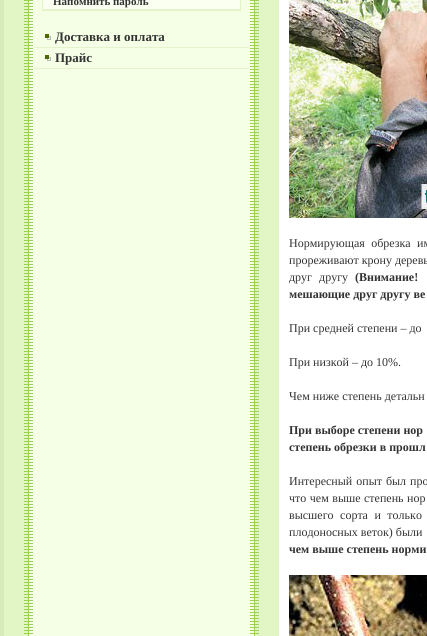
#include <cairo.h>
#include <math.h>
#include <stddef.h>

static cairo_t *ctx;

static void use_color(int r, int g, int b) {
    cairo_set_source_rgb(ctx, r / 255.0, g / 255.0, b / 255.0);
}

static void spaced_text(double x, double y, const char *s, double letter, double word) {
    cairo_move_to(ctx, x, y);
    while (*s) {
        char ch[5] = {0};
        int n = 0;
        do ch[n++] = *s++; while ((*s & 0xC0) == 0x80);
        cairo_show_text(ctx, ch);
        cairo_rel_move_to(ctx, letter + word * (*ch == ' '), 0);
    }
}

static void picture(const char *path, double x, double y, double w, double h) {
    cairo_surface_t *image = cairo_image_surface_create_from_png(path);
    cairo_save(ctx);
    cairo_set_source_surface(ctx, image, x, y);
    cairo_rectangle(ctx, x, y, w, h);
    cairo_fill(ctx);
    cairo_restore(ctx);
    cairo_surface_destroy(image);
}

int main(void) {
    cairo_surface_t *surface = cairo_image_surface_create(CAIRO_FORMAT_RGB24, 427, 636);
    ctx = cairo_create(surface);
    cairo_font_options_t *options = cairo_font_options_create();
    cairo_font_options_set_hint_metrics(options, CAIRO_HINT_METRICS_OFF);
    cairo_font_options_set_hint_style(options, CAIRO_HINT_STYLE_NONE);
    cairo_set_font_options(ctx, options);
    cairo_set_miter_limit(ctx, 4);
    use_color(225, 245, 197);
    cairo_paint(ctx);
    use_color(214, 235, 185);
    cairo_rectangle(ctx, 0, 0, 4, 636);
    cairo_fill(ctx);
    picture("img1.png", 24, 0, 235, 636);
    use_color(250, 255, 242);
    cairo_rectangle(ctx, 43, 0, 197, 9);
    cairo_fill(ctx);
    use_color(225, 245, 197);
    cairo_rectangle(ctx, 240, 0, 1, 11);
    cairo_fill(ctx);
    cairo_rectangle(ctx, 42, 10, 199, 1);
    cairo_fill(ctx);
    cairo_rectangle(ctx, 42, 0, 1, 11);
    cairo_fill(ctx);
    use_color(228, 243, 206);
    cairo_rectangle(ctx, 43, 9, 197, 1);
    cairo_fill(ctx);
    cairo_select_font_face(ctx, "Liberation Serif", CAIRO_FONT_SLANT_NORMAL, CAIRO_FONT_WEIGHT_BOLD);
    cairo_set_font_size(ctx, 11);
    use_color(51, 51, 51);
    cairo_move_to(ctx, 53, 5);
    cairo_show_text(ctx, "Напомнить пароль");
    use_color(228, 243, 206);
    cairo_rectangle(ctx, 34, 47, 215, 1);
    cairo_fill(ctx);
    picture("img2.png", 44, 34, 7, 6);
    cairo_set_font_size(ctx, 13);
    use_color(51, 51, 51);
    cairo_move_to(ctx, 55, 41);
    cairo_show_text(ctx, "Доставка и оплата");
    use_color(228, 243, 206);
    cairo_rectangle(ctx, 34, 68, 215, 1);
    cairo_fill(ctx);
    picture("img2.png", 44, 55, 7, 6);
    use_color(51, 51, 51);
    cairo_move_to(ctx, 55, 62);
    cairo_show_text(ctx, "Прайс");
    use_color(255, 255, 255);
    cairo_rectangle(ctx, 279, 0, 148, 636);
    cairo_fill(ctx);
    picture("img3.png", 289, 0, 138, 218);
    cairo_select_font_face(ctx, "Liberation Serif", CAIRO_FONT_SLANT_NORMAL, CAIRO_FONT_WEIGHT_NORMAL);
    cairo_set_font_size(ctx, 12);
    use_color(51, 51, 51);
    spaced_text(289, 247, "Нормирующая обрезка им", 0, 3.5);
    cairo_move_to(ctx, 289, 264);
    cairo_show_text(ctx, "прореживают крону деревь");
    spaced_text(289, 281, "друг другу", 0, 4);
    cairo_select_font_face(ctx, "Liberation Serif", CAIRO_FONT_SLANT_NORMAL, CAIRO_FONT_WEIGHT_BOLD);
    spaced_text(355, 281, "(Внимание!", 0, 4);
    cairo_move_to(ctx, 289, 298);
    cairo_show_text(ctx, "мешающие друг другу ве");
    cairo_select_font_face(ctx, "Liberation Serif", CAIRO_FONT_SLANT_NORMAL, CAIRO_FONT_WEIGHT_NORMAL);
    cairo_move_to(ctx, 289, 332);
    cairo_show_text(ctx, "При средней степени – до");
    cairo_move_to(ctx, 289, 366);
    cairo_show_text(ctx, "При низкой – до 10%.");
    cairo_move_to(ctx, 289, 400);
    cairo_show_text(ctx, "Чем ниже степень детальн");
    cairo_select_font_face(ctx, "Liberation Serif", CAIRO_FONT_SLANT_NORMAL, CAIRO_FONT_WEIGHT_BOLD);
    cairo_move_to(ctx, 289, 434);
    cairo_show_text(ctx, "При выборе степени нор");
    cairo_move_to(ctx, 289, 451);
    cairo_show_text(ctx, "степень обрезки в прошл");
    cairo_select_font_face(ctx, "Liberation Serif", CAIRO_FONT_SLANT_NORMAL, CAIRO_FONT_WEIGHT_NORMAL);
    spaced_text(289, 485, "Интересный опыт был про", 0, 1);
    spaced_text(289, 502, "что чем выше степень нор", 0, 0.5);
    spaced_text(289, 519, "высшего сорта и только", 0, 3.5);
    cairo_move_to(ctx, 289, 536);
    cairo_show_text(ctx, "плодоносных веток) были");
    cairo_select_font_face(ctx, "Liberation Serif", CAIRO_FONT_SLANT_NORMAL, CAIRO_FONT_WEIGHT_BOLD);
    cairo_move_to(ctx, 289, 553);
    cairo_show_text(ctx, "чем выше степень норми");
    picture("img4.png", 289, 575, 138, 61);
    cairo_surface_write_to_png(surface, "result.png");
    cairo_font_options_destroy(options);
    cairo_destroy(ctx);
    cairo_surface_destroy(surface);
    return 0;
}
